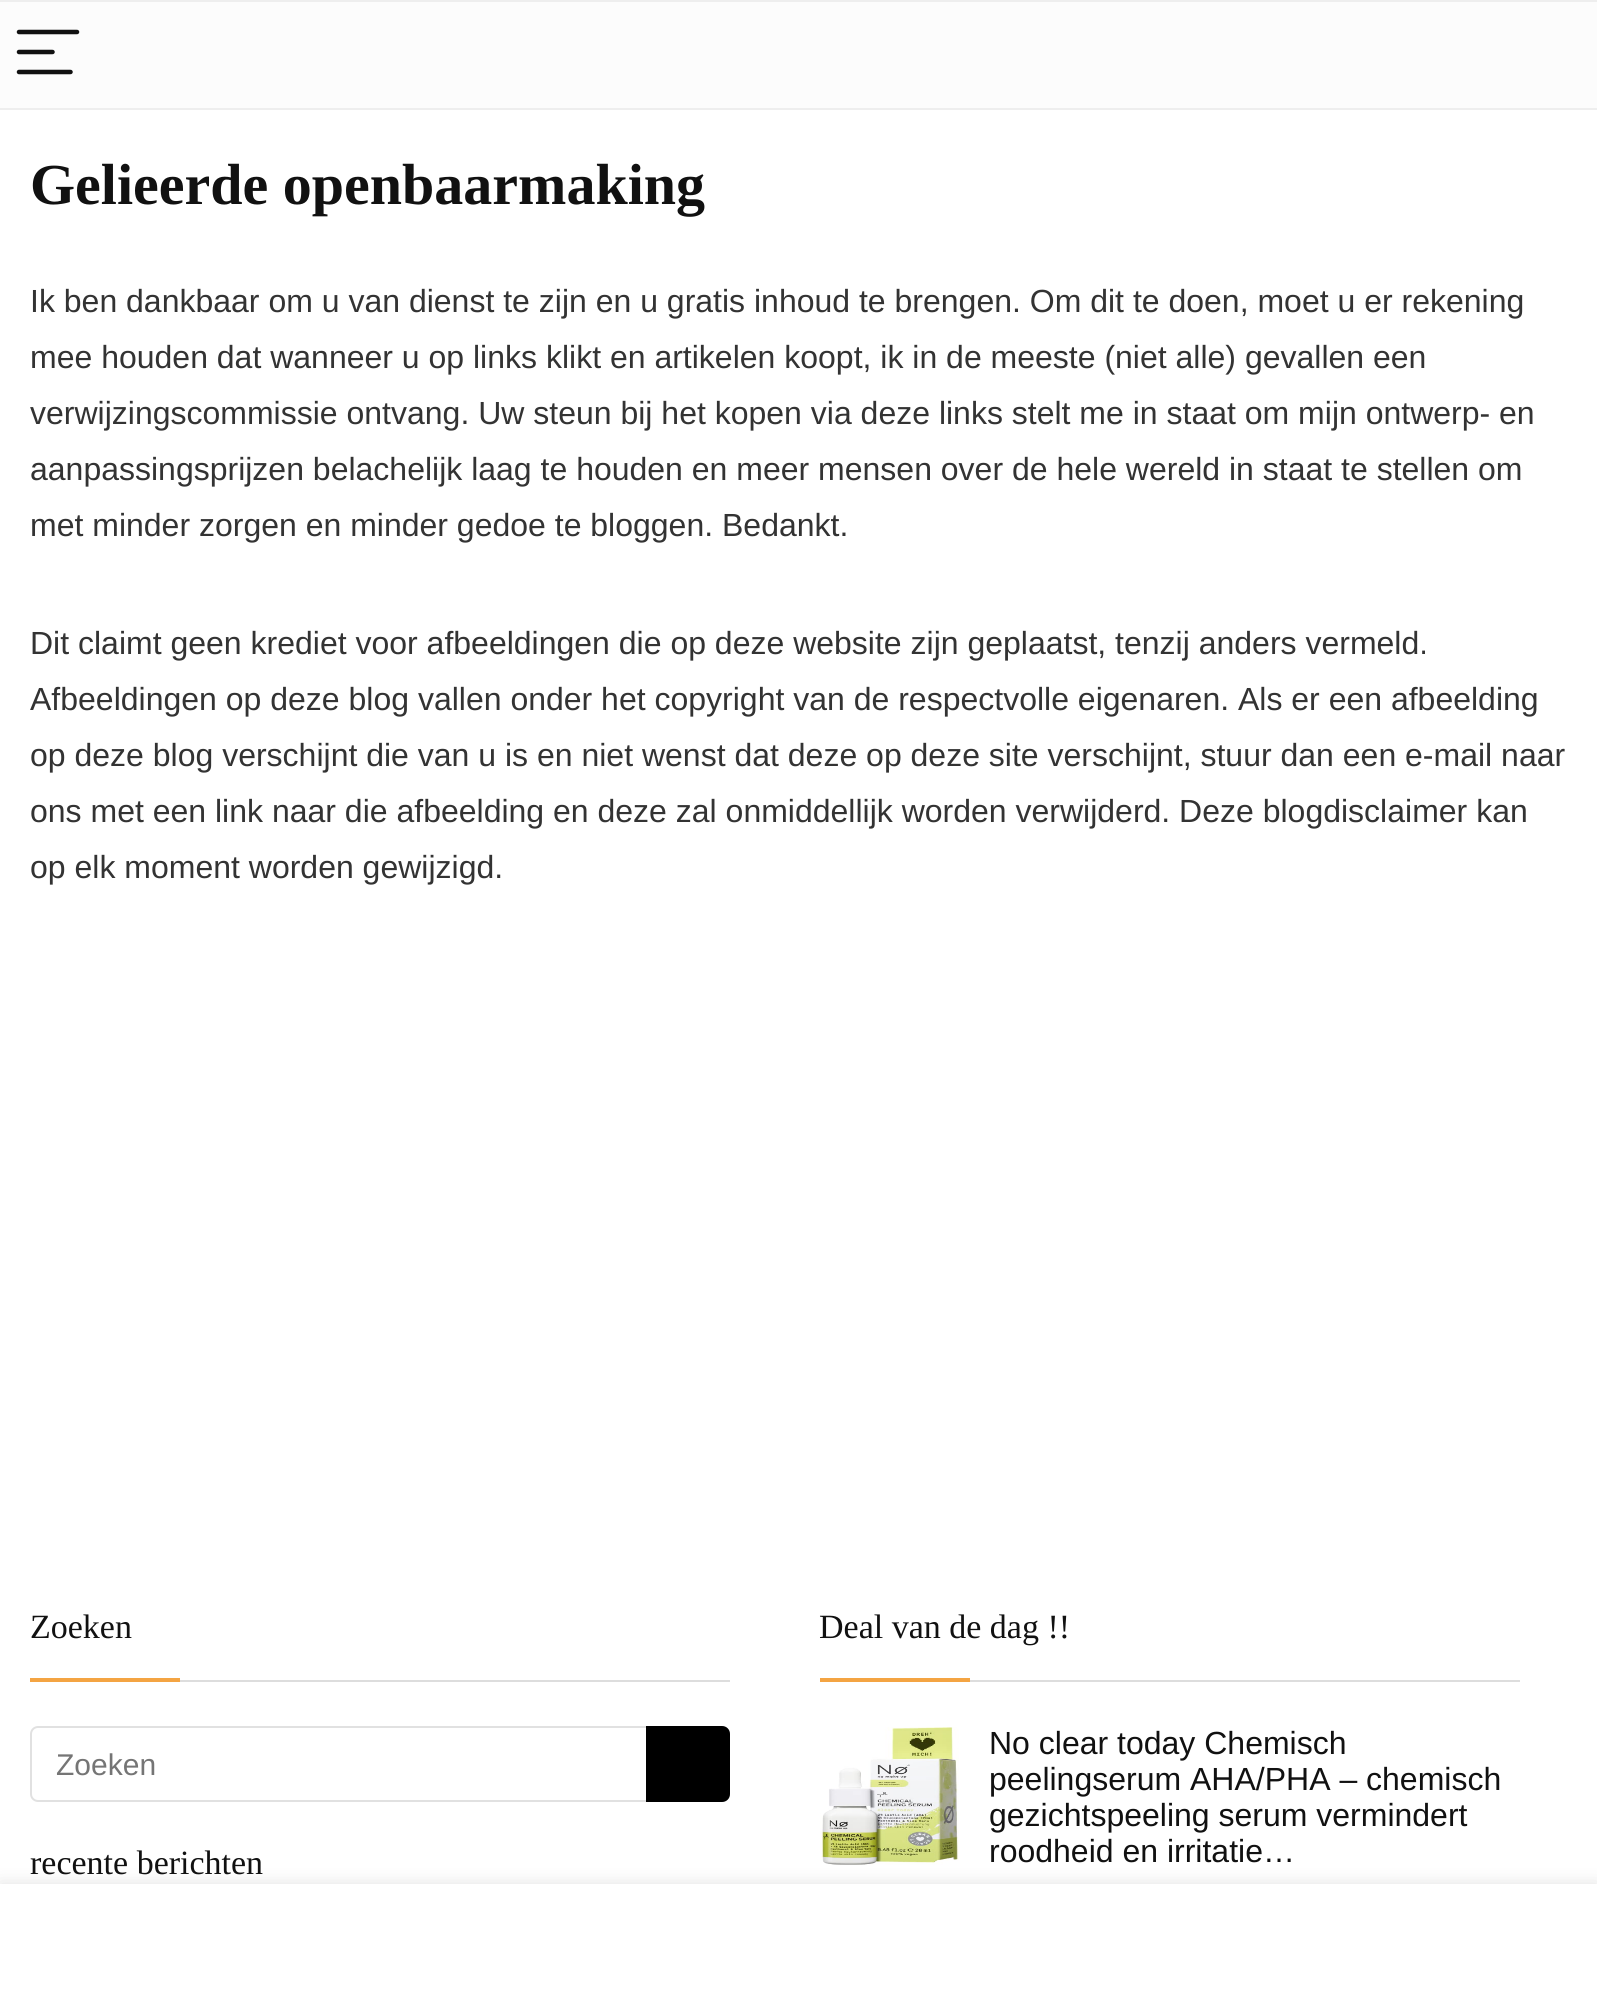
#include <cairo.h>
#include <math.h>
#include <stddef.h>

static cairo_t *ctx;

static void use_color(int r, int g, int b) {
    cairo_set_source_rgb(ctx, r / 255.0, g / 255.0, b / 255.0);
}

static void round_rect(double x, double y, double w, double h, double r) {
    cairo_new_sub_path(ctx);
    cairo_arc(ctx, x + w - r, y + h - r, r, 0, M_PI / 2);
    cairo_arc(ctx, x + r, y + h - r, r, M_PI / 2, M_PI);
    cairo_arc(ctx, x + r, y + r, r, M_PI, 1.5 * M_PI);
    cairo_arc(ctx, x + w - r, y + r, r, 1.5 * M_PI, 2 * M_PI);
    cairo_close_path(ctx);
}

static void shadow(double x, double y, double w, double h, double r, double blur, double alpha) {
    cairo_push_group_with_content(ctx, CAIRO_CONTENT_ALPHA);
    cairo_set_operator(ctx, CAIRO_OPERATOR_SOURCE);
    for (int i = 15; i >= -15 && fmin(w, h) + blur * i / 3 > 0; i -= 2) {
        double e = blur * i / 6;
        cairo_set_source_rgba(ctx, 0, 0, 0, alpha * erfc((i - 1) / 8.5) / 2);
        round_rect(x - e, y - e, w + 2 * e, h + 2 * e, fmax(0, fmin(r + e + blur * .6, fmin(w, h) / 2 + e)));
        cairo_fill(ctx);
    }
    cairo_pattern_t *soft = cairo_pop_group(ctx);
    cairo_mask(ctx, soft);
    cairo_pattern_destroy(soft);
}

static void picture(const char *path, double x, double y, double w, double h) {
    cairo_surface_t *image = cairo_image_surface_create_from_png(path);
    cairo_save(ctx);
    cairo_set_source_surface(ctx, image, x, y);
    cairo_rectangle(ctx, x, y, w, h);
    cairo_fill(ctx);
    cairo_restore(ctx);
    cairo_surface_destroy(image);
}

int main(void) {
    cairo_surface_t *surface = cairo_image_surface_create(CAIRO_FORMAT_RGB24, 1597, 1994);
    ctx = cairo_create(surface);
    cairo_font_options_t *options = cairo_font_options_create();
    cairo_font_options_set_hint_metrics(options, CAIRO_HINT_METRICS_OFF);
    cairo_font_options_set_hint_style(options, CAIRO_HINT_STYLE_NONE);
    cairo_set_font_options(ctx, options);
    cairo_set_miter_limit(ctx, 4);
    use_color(255, 255, 255);
    cairo_paint(ctx);
    use_color(252, 252, 252);
    cairo_rectangle(ctx, 0, 2, 1597, 106);
    cairo_fill(ctx);
    use_color(238, 238, 238);
    cairo_rectangle(ctx, 0, 0, 1597, 2);
    cairo_fill(ctx);
    cairo_rectangle(ctx, 0, 108, 1597, 2);
    cairo_fill(ctx);
    cairo_new_path(ctx);
    cairo_move_to(ctx, 19, 32);
    cairo_line_to(ctx, 77, 32);
    use_color(17, 17, 17);
    cairo_set_line_width(ctx, 4.5);
    cairo_set_line_cap(ctx, CAIRO_LINE_CAP_ROUND);
    cairo_stroke(ctx);
    cairo_new_path(ctx);
    cairo_move_to(ctx, 19, 52);
    cairo_line_to(ctx, 52.5, 52);
    cairo_move_to(ctx, 19, 72);
    cairo_line_to(ctx, 70.5, 72);
    cairo_stroke(ctx);
    picture("img1.png", 820, 1727, 139, 138);
    use_color(0, 0, 0);
    shadow(0, 1884, 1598, 110, 0, 9, 0.12);
    use_color(255, 255, 255);
    cairo_rectangle(ctx, 0, 1884, 1597, 110);
    cairo_fill(ctx);
    cairo_select_font_face(ctx, "Liberation Serif", CAIRO_FONT_SLANT_NORMAL, CAIRO_FONT_WEIGHT_BOLD);
    cairo_set_font_size(ctx, 58);
    use_color(17, 17, 17);
    cairo_move_to(ctx, 30, 204);
    cairo_show_text(ctx, "Gelieerde openbaarmaking");
    cairo_select_font_face(ctx, "Liberation Sans", CAIRO_FONT_SLANT_NORMAL, CAIRO_FONT_WEIGHT_NORMAL);
    cairo_set_font_size(ctx, 32);
    use_color(51, 51, 51);
    cairo_move_to(ctx, 30, 312);
    cairo_show_text(ctx, "Ik ben dankbaar om u van dienst te zijn en u gratis inhoud te brengen. Om dit te doen, moet u er rekening");
    cairo_move_to(ctx, 30, 368);
    cairo_show_text(ctx, "mee houden dat wanneer u op links klikt en artikelen koopt, ik in de meeste (niet alle) gevallen een");
    cairo_move_to(ctx, 30, 424);
    cairo_show_text(ctx, "verwijzingscommissie ontvang. Uw steun bij het kopen via deze links stelt me in staat om mijn ontwerp- en");
    cairo_move_to(ctx, 30, 480);
    cairo_show_text(ctx, "aanpassingsprijzen belachelijk laag te houden en meer mensen over de hele wereld in staat te stellen om");
    cairo_move_to(ctx, 30, 536);
    cairo_show_text(ctx, "met minder zorgen en minder gedoe te bloggen. Bedankt.");
    cairo_move_to(ctx, 30, 654);
    cairo_show_text(ctx, "Dit claimt geen krediet voor afbeeldingen die op deze website zijn geplaatst, tenzij anders vermeld.");
    cairo_move_to(ctx, 30, 710);
    cairo_show_text(ctx, "Afbeeldingen op deze blog vallen onder het copyright van de respectvolle eigenaren. Als er een afbeelding");
    cairo_move_to(ctx, 30, 766);
    cairo_show_text(ctx, "op deze blog verschijnt die van u is en niet wenst dat deze op deze site verschijnt, stuur dan een e-mail naar");
    cairo_move_to(ctx, 30, 822);
    cairo_show_text(ctx, "ons met een link naar die afbeelding en deze zal onmiddellijk worden verwijderd. Deze blogdisclaimer kan");
    cairo_move_to(ctx, 30, 878);
    cairo_show_text(ctx, "op elk moment worden gewijzigd.");
    use_color(221, 221, 221);
    cairo_rectangle(ctx, 180, 1680, 550, 2);
    cairo_fill(ctx);
    cairo_select_font_face(ctx, "Liberation Serif", CAIRO_FONT_SLANT_NORMAL, CAIRO_FONT_WEIGHT_NORMAL);
    cairo_set_font_size(ctx, 34);
    use_color(17, 17, 17);
    cairo_move_to(ctx, 30, 1638);
    cairo_show_text(ctx, "Zoeken");
    use_color(244, 164, 67);
    cairo_rectangle(ctx, 30, 1678, 150, 4);
    cairo_fill(ctx);
    round_rect(31, 1727, 698, 74, 7);
    use_color(225, 225, 225);
    cairo_set_line_width(ctx, 2);
    cairo_set_line_cap(ctx, CAIRO_LINE_CAP_BUTT);
    cairo_stroke(ctx);
    cairo_select_font_face(ctx, "Liberation Sans", CAIRO_FONT_SLANT_NORMAL, CAIRO_FONT_WEIGHT_NORMAL);
    cairo_set_font_size(ctx, 30);
    use_color(117, 117, 117);
    cairo_move_to(ctx, 56, 1775);
    cairo_show_text(ctx, "Zoeken");
    use_color(0, 0, 0);
    cairo_new_path(ctx);
    cairo_move_to(ctx, 646, 1726);
    cairo_line_to(ctx, 722, 1726);
    cairo_curve_to(ctx, 726.5, 1726, 730, 1729.5, 730, 1734);
    cairo_line_to(ctx, 730, 1794);
    cairo_curve_to(ctx, 730, 1798.5, 726.5, 1802, 722, 1802);
    cairo_line_to(ctx, 646, 1802);
    cairo_close_path(ctx);
    cairo_fill(ctx);
    use_color(221, 221, 221);
    cairo_rectangle(ctx, 970, 1680, 550, 2);
    cairo_fill(ctx);
    cairo_select_font_face(ctx, "Liberation Serif", CAIRO_FONT_SLANT_NORMAL, CAIRO_FONT_WEIGHT_NORMAL);
    cairo_set_font_size(ctx, 34);
    use_color(17, 17, 17);
    cairo_move_to(ctx, 819, 1638);
    cairo_show_text(ctx, "Deal van de dag !!");
    use_color(244, 164, 67);
    cairo_rectangle(ctx, 820, 1678, 150, 4);
    cairo_fill(ctx);
    cairo_select_font_face(ctx, "Liberation Sans", CAIRO_FONT_SLANT_NORMAL, CAIRO_FONT_WEIGHT_NORMAL);
    cairo_set_font_size(ctx, 32);
    use_color(17, 17, 17);
    cairo_move_to(ctx, 989, 1754);
    cairo_show_text(ctx, "No clear today Chemisch");
    cairo_move_to(ctx, 989, 1790);
    cairo_show_text(ctx, "peelingserum AHA/PHA – chemisch");
    cairo_move_to(ctx, 989, 1826);
    cairo_show_text(ctx, "gezichtspeeling serum vermindert");
    cairo_move_to(ctx, 989, 1862);
    cairo_show_text(ctx, "roodheid en irritatie…");
    cairo_select_font_face(ctx, "Liberation Serif", CAIRO_FONT_SLANT_NORMAL, CAIRO_FONT_WEIGHT_NORMAL);
    cairo_set_font_size(ctx, 34);
    cairo_move_to(ctx, 30, 1874);
    cairo_show_text(ctx, "recente berichten");
    cairo_surface_write_to_png(surface, "result.png");
    cairo_font_options_destroy(options);
    cairo_destroy(ctx);
    cairo_surface_destroy(surface);
    return 0;
}
